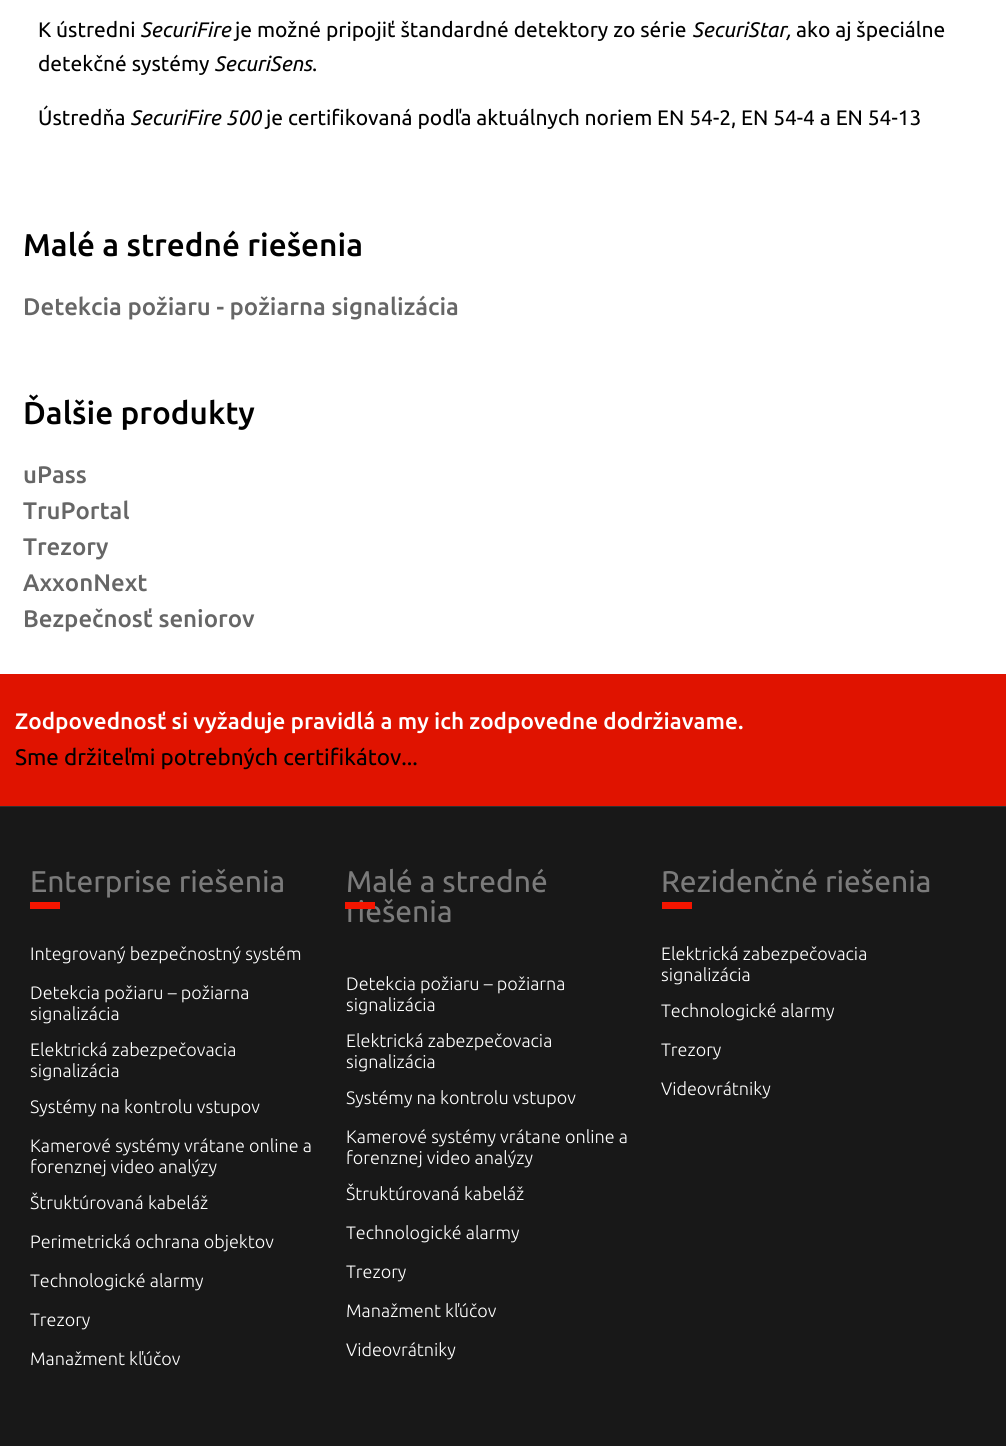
#include <cairo.h>
#include <math.h>
#include <stddef.h>

static cairo_t *ctx;

static void use_color(int r, int g, int b) {
    cairo_set_source_rgb(ctx, r / 255.0, g / 255.0, b / 255.0);
}

int main(void) {
    cairo_surface_t *surface = cairo_image_surface_create(CAIRO_FORMAT_RGB24, 1006, 1446);
    ctx = cairo_create(surface);
    cairo_font_options_t *options = cairo_font_options_create();
    cairo_font_options_set_hint_metrics(options, CAIRO_HINT_METRICS_OFF);
    cairo_font_options_set_hint_style(options, CAIRO_HINT_STYLE_NONE);
    cairo_set_font_options(ctx, options);
    cairo_set_miter_limit(ctx, 4);
    use_color(24, 24, 24);
    cairo_paint(ctx);
    use_color(48, 48, 48);
    cairo_rectangle(ctx, 0, 806, 1006, 1);
    cairo_fill(ctx);
    use_color(255, 255, 255);
    cairo_rectangle(ctx, 0, 0, 1006, 674);
    cairo_fill(ctx);
    cairo_select_font_face(ctx, "Ubuntu", CAIRO_FONT_SLANT_NORMAL, CAIRO_FONT_WEIGHT_NORMAL);
    cairo_set_font_size(ctx, 21);
    use_color(0, 0, 0);
    cairo_move_to(ctx, 38, 37);
    cairo_show_text(ctx, "K ústredni");
    cairo_select_font_face(ctx, "Ubuntu", CAIRO_FONT_SLANT_ITALIC, CAIRO_FONT_WEIGHT_NORMAL);
    cairo_move_to(ctx, 140, 37);
    cairo_show_text(ctx, "SecuriFire");
    cairo_select_font_face(ctx, "Ubuntu", CAIRO_FONT_SLANT_NORMAL, CAIRO_FONT_WEIGHT_NORMAL);
    cairo_move_to(ctx, 235, 37);
    cairo_show_text(ctx, "je možné pripojiť štandardné detektory zo série");
    cairo_select_font_face(ctx, "Ubuntu", CAIRO_FONT_SLANT_ITALIC, CAIRO_FONT_WEIGHT_NORMAL);
    cairo_move_to(ctx, 692, 37);
    cairo_show_text(ctx, "SecuriStar,");
    cairo_select_font_face(ctx, "Ubuntu", CAIRO_FONT_SLANT_NORMAL, CAIRO_FONT_WEIGHT_NORMAL);
    cairo_move_to(ctx, 796, 37);
    cairo_show_text(ctx, "ako aj špeciálne");
    cairo_move_to(ctx, 38, 71);
    cairo_show_text(ctx, "detekčné systémy");
    cairo_select_font_face(ctx, "Ubuntu", CAIRO_FONT_SLANT_ITALIC, CAIRO_FONT_WEIGHT_NORMAL);
    cairo_move_to(ctx, 214, 71);
    cairo_show_text(ctx, "SecuriSens");
    cairo_select_font_face(ctx, "Ubuntu", CAIRO_FONT_SLANT_NORMAL, CAIRO_FONT_WEIGHT_NORMAL);
    cairo_move_to(ctx, 312, 71);
    cairo_show_text(ctx, ".");
    cairo_move_to(ctx, 38, 125);
    cairo_show_text(ctx, "Ústredňa");
    cairo_select_font_face(ctx, "Ubuntu", CAIRO_FONT_SLANT_ITALIC, CAIRO_FONT_WEIGHT_NORMAL);
    cairo_move_to(ctx, 130, 125);
    cairo_show_text(ctx, "SecuriFire 500");
    cairo_select_font_face(ctx, "Ubuntu", CAIRO_FONT_SLANT_NORMAL, CAIRO_FONT_WEIGHT_NORMAL);
    cairo_move_to(ctx, 266, 125);
    cairo_show_text(ctx, "je certifikovaná podľa aktuálnych noriem EN 54-2, EN 54-4 a EN 54-13");
    cairo_select_font_face(ctx, "Ubuntu Medium", CAIRO_FONT_SLANT_NORMAL, CAIRO_FONT_WEIGHT_NORMAL);
    cairo_set_font_size(ctx, 31.5);
    cairo_move_to(ctx, 23, 256);
    cairo_show_text(ctx, "Malé a stredné riešenia");
    cairo_set_font_size(ctx, 24);
    use_color(102, 102, 102);
    cairo_move_to(ctx, 23, 315);
    cairo_show_text(ctx, "Detekcia požiaru - požiarna signalizácia");
    cairo_set_font_size(ctx, 31.5);
    use_color(0, 0, 0);
    cairo_move_to(ctx, 23, 424);
    cairo_show_text(ctx, "Ďalšie produkty");
    cairo_set_font_size(ctx, 24);
    use_color(102, 102, 102);
    cairo_move_to(ctx, 23, 483);
    cairo_show_text(ctx, "uPass");
    cairo_move_to(ctx, 23, 519);
    cairo_show_text(ctx, "TruPortal");
    cairo_move_to(ctx, 23, 555);
    cairo_show_text(ctx, "Trezory");
    cairo_move_to(ctx, 23, 591);
    cairo_show_text(ctx, "AxxonNext");
    cairo_move_to(ctx, 23, 627);
    cairo_show_text(ctx, "Bezpečnosť seniorov");
    use_color(224, 19, 0);
    cairo_rectangle(ctx, 0, 674, 1006, 132);
    cairo_fill(ctx);
    cairo_set_font_size(ctx, 22.5);
    use_color(255, 255, 255);
    cairo_move_to(ctx, 15, 729);
    cairo_show_text(ctx, "Zodpovednosť si vyžaduje pravidlá a my ich zodpovedne dodržiavame.");
    cairo_select_font_face(ctx, "Ubuntu", CAIRO_FONT_SLANT_NORMAL, CAIRO_FONT_WEIGHT_NORMAL);
    use_color(0, 0, 0);
    cairo_move_to(ctx, 15, 765);
    cairo_show_text(ctx, "Sme držiteľmi potrebných certifikátov...");
    cairo_set_font_size(ctx, 30);
    use_color(123, 123, 123);
    cairo_move_to(ctx, 30, 892);
    cairo_show_text(ctx, "Enterprise riešenia");
    use_color(244, 21, 0);
    cairo_rectangle(ctx, 30, 902, 30, 7);
    cairo_fill(ctx);
    cairo_select_font_face(ctx, "Ubuntu Light", CAIRO_FONT_SLANT_NORMAL, CAIRO_FONT_WEIGHT_NORMAL);
    cairo_set_font_size(ctx, 18);
    use_color(255, 255, 255);
    cairo_move_to(ctx, 30, 960);
    cairo_show_text(ctx, "Integrovaný bezpečnostný systém");
    cairo_move_to(ctx, 30, 999);
    cairo_show_text(ctx, "Detekcia požiaru – požiarna");
    cairo_move_to(ctx, 30, 1020);
    cairo_show_text(ctx, "signalizácia");
    cairo_move_to(ctx, 30, 1056);
    cairo_show_text(ctx, "Elektrická zabezpečovacia");
    cairo_move_to(ctx, 30, 1077);
    cairo_show_text(ctx, "signalizácia");
    cairo_move_to(ctx, 30, 1113);
    cairo_show_text(ctx, "Systémy na kontrolu vstupov");
    cairo_move_to(ctx, 30, 1152);
    cairo_show_text(ctx, "Kamerové systémy vrátane online a");
    cairo_move_to(ctx, 30, 1173);
    cairo_show_text(ctx, "forenznej video analýzy");
    cairo_move_to(ctx, 30, 1209);
    cairo_show_text(ctx, "Štruktúrovaná kabeláž");
    cairo_move_to(ctx, 30, 1248);
    cairo_show_text(ctx, "Perimetrická ochrana objektov");
    cairo_move_to(ctx, 30, 1287);
    cairo_show_text(ctx, "Technologické alarmy");
    cairo_move_to(ctx, 30, 1326);
    cairo_show_text(ctx, "Trezory");
    cairo_move_to(ctx, 30, 1365);
    cairo_show_text(ctx, "Manažment kľúčov");
    cairo_select_font_face(ctx, "Ubuntu", CAIRO_FONT_SLANT_NORMAL, CAIRO_FONT_WEIGHT_NORMAL);
    cairo_set_font_size(ctx, 30);
    use_color(123, 123, 123);
    cairo_move_to(ctx, 346, 892);
    cairo_show_text(ctx, "Malé a stredné");
    cairo_move_to(ctx, 346, 922);
    cairo_show_text(ctx, "riešenia");
    use_color(244, 21, 0);
    cairo_rectangle(ctx, 345, 902, 30, 7);
    cairo_fill(ctx);
    cairo_select_font_face(ctx, "Ubuntu Light", CAIRO_FONT_SLANT_NORMAL, CAIRO_FONT_WEIGHT_NORMAL);
    cairo_set_font_size(ctx, 18);
    use_color(255, 255, 255);
    cairo_move_to(ctx, 346, 990);
    cairo_show_text(ctx, "Detekcia požiaru – požiarna");
    cairo_move_to(ctx, 346, 1011);
    cairo_show_text(ctx, "signalizácia");
    cairo_move_to(ctx, 346, 1047);
    cairo_show_text(ctx, "Elektrická zabezpečovacia");
    cairo_move_to(ctx, 346, 1068);
    cairo_show_text(ctx, "signalizácia");
    cairo_move_to(ctx, 346, 1104);
    cairo_show_text(ctx, "Systémy na kontrolu vstupov");
    cairo_move_to(ctx, 346, 1143);
    cairo_show_text(ctx, "Kamerové systémy vrátane online a");
    cairo_move_to(ctx, 346, 1164);
    cairo_show_text(ctx, "forenznej video analýzy");
    cairo_move_to(ctx, 346, 1200);
    cairo_show_text(ctx, "Štruktúrovaná kabeláž");
    cairo_move_to(ctx, 346, 1239);
    cairo_show_text(ctx, "Technologické alarmy");
    cairo_move_to(ctx, 346, 1278);
    cairo_show_text(ctx, "Trezory");
    cairo_move_to(ctx, 346, 1317);
    cairo_show_text(ctx, "Manažment kľúčov");
    cairo_move_to(ctx, 346, 1356);
    cairo_show_text(ctx, "Videovrátniky");
    cairo_select_font_face(ctx, "Ubuntu", CAIRO_FONT_SLANT_NORMAL, CAIRO_FONT_WEIGHT_NORMAL);
    cairo_set_font_size(ctx, 30);
    use_color(123, 123, 123);
    cairo_move_to(ctx, 661, 892);
    cairo_show_text(ctx, "Rezidenčné riešenia");
    use_color(244, 21, 0);
    cairo_rectangle(ctx, 662, 902, 30, 7);
    cairo_fill(ctx);
    cairo_select_font_face(ctx, "Ubuntu Light", CAIRO_FONT_SLANT_NORMAL, CAIRO_FONT_WEIGHT_NORMAL);
    cairo_set_font_size(ctx, 18);
    use_color(255, 255, 255);
    cairo_move_to(ctx, 661, 960);
    cairo_show_text(ctx, "Elektrická zabezpečovacia");
    cairo_move_to(ctx, 661, 981);
    cairo_show_text(ctx, "signalizácia");
    cairo_move_to(ctx, 661, 1017);
    cairo_show_text(ctx, "Technologické alarmy");
    cairo_move_to(ctx, 661, 1056);
    cairo_show_text(ctx, "Trezory");
    cairo_move_to(ctx, 661, 1095);
    cairo_show_text(ctx, "Videovrátniky");
    cairo_surface_write_to_png(surface, "result.png");
    cairo_font_options_destroy(options);
    cairo_destroy(ctx);
    cairo_surface_destroy(surface);
    return 0;
}
